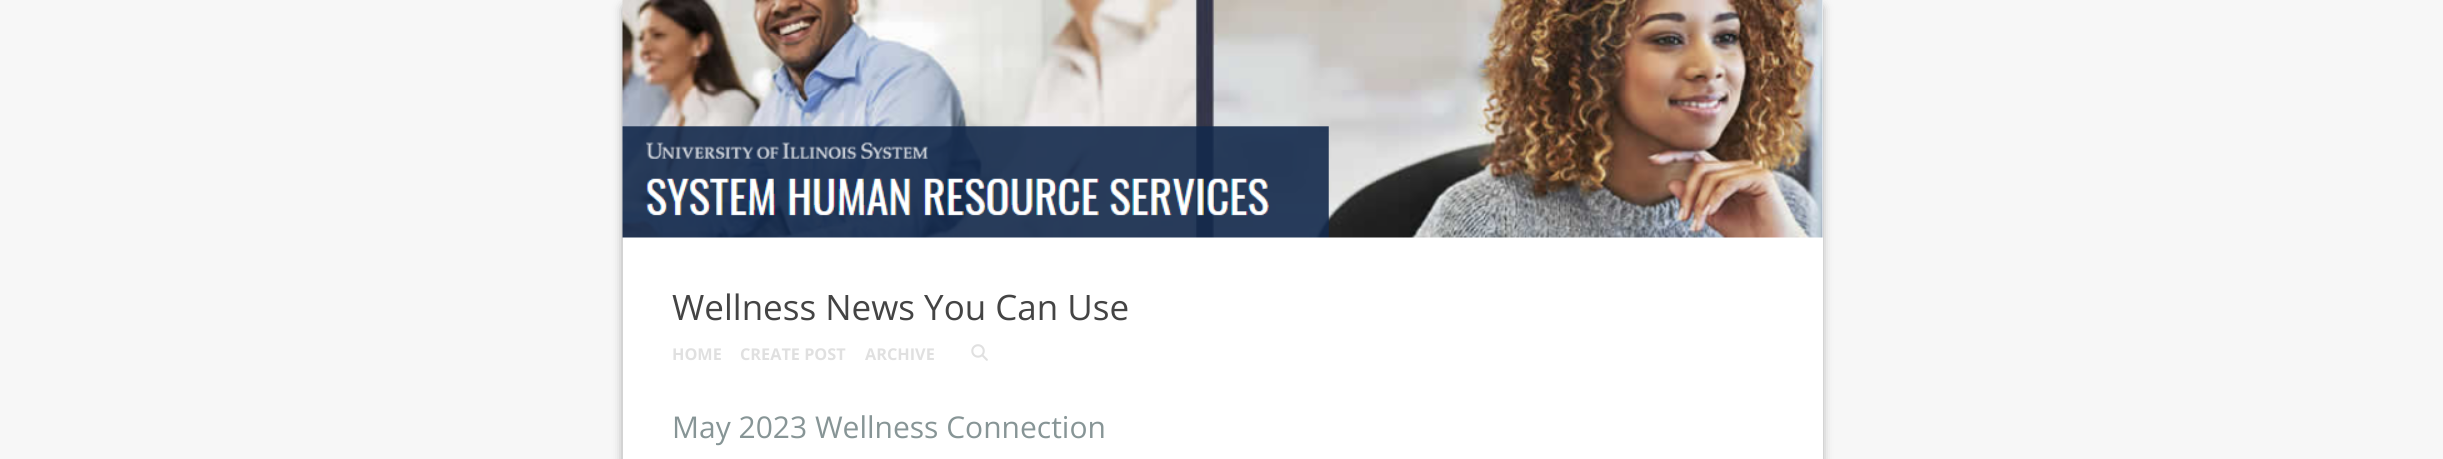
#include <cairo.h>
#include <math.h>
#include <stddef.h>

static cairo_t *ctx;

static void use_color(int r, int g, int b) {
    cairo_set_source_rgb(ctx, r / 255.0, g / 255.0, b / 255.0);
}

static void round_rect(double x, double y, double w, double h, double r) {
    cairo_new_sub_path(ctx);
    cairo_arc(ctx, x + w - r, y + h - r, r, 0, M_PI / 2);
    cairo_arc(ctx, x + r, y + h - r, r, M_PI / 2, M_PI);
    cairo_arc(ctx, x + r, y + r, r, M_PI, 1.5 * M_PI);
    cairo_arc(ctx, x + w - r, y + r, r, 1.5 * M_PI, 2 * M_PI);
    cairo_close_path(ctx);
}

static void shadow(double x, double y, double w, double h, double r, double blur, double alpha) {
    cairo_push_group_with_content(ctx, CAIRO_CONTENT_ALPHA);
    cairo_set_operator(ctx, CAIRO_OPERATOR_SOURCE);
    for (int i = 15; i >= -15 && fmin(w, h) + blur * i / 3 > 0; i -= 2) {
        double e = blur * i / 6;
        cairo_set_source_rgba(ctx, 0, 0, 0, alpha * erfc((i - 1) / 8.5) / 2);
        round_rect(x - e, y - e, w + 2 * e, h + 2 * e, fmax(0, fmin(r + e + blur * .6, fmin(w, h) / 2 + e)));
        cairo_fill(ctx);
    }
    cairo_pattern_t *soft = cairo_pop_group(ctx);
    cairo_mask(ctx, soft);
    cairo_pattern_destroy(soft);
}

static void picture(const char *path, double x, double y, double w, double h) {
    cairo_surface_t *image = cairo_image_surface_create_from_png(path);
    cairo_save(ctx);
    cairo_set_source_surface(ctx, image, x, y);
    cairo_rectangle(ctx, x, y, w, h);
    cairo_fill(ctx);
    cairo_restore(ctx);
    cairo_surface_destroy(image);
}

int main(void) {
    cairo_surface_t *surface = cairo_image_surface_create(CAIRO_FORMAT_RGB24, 2443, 459);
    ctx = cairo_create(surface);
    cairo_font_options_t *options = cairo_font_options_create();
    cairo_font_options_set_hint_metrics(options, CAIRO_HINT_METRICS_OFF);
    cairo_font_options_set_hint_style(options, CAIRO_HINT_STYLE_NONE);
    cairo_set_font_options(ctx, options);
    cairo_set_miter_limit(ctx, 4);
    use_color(247, 247, 247);
    cairo_paint(ctx);
    use_color(102, 102, 102);
    shadow(626, 8, 1193, 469, 0, 6, 1);
    use_color(255, 255, 255);
    cairo_rectangle(ctx, 623, 0, 1200, 459);
    cairo_fill(ctx);
    picture("img1.png", 622, 0, 1201, 238);
    cairo_select_font_face(ctx, "Open Sans", CAIRO_FONT_SLANT_NORMAL, CAIRO_FONT_WEIGHT_NORMAL);
    cairo_set_font_size(ctx, 35);
    use_color(68, 68, 68);
    cairo_move_to(ctx, 672, 320);
    cairo_show_text(ctx, "Wellness News You Can Use");
    cairo_select_font_face(ctx, "Open Sans", CAIRO_FONT_SLANT_NORMAL, CAIRO_FONT_WEIGHT_BOLD);
    cairo_set_font_size(ctx, 16.25);
    use_color(224, 224, 224);
    cairo_move_to(ctx, 672, 360);
    cairo_show_text(ctx, "HOME");
    cairo_move_to(ctx, 740, 360);
    cairo_show_text(ctx, "CREATE POST");
    cairo_move_to(ctx, 865, 360);
    cairo_show_text(ctx, "ARCHIVE");
    picture("img2.png", 971, 344, 17, 17);
    cairo_select_font_face(ctx, "Open Sans", CAIRO_FONT_SLANT_NORMAL, CAIRO_FONT_WEIGHT_NORMAL);
    cairo_set_font_size(ctx, 30);
    use_color(135, 149, 150);
    cairo_move_to(ctx, 672, 438);
    cairo_show_text(ctx, "May 2023 Wellness Connection");
    cairo_surface_write_to_png(surface, "result.png");
    cairo_font_options_destroy(options);
    cairo_destroy(ctx);
    cairo_surface_destroy(surface);
    return 0;
}
